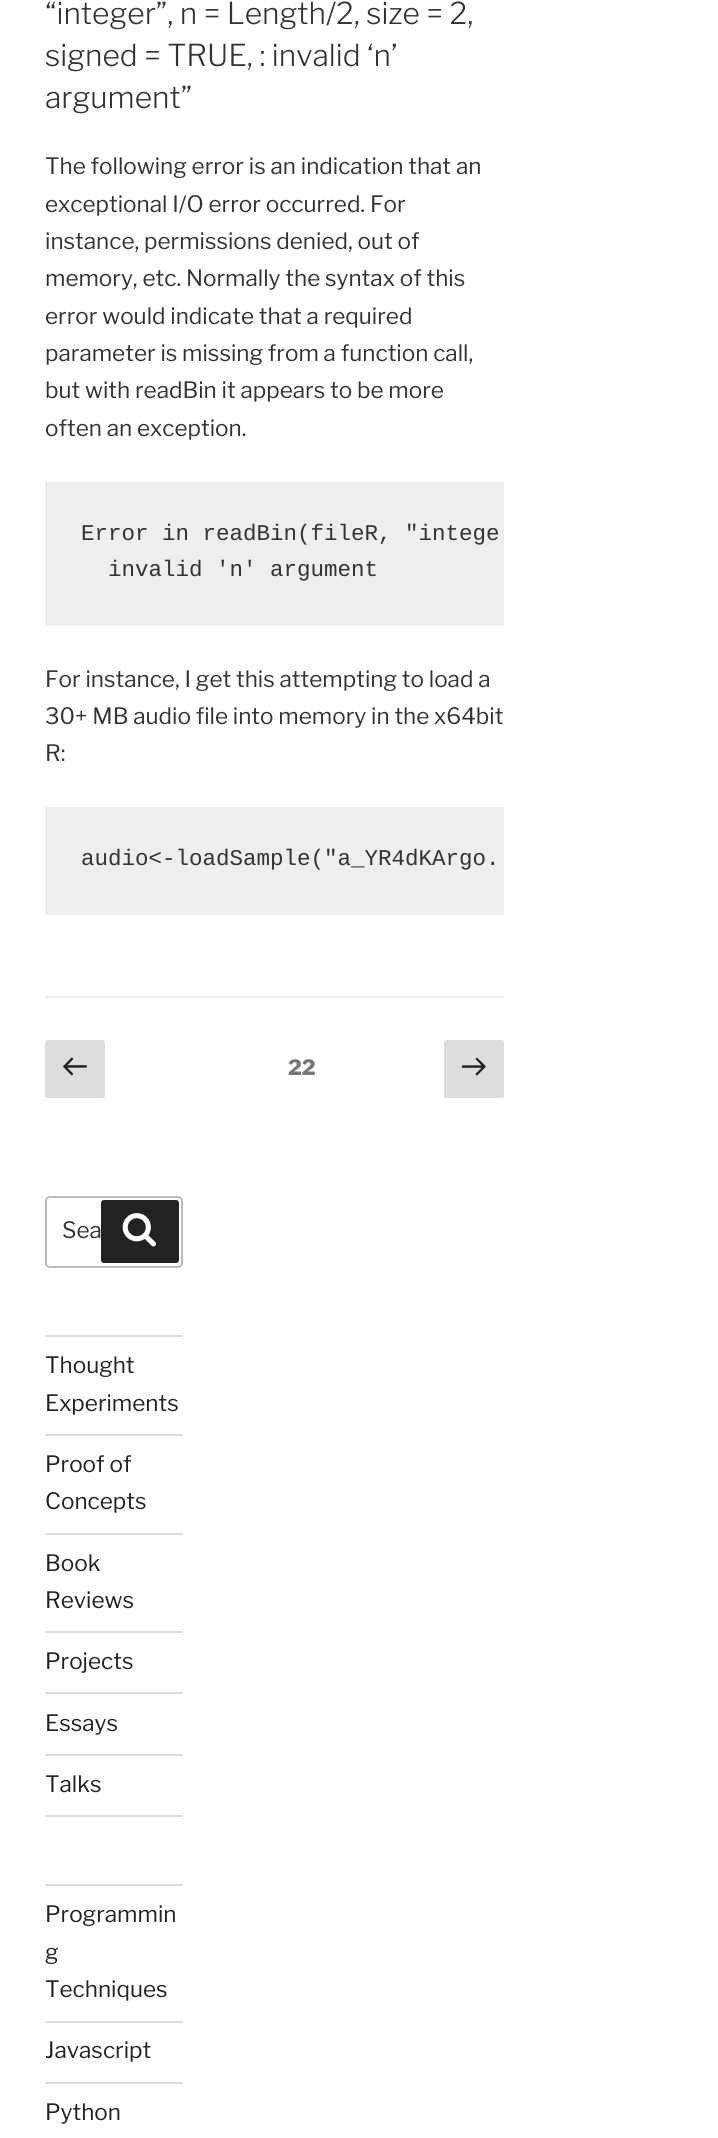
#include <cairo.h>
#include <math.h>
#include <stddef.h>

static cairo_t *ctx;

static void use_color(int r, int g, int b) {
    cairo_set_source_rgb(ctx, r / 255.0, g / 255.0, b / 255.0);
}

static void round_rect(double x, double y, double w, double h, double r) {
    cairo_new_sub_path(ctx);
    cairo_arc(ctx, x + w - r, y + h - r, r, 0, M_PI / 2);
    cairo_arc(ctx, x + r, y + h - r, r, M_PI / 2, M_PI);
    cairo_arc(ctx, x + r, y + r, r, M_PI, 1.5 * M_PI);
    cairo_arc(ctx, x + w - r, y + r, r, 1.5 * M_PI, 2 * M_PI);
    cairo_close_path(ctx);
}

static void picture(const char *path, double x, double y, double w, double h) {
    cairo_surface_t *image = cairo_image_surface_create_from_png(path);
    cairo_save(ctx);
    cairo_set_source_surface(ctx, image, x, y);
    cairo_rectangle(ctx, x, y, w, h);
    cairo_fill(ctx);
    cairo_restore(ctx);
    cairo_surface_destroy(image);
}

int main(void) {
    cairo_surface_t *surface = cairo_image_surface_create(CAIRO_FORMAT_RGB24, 718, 2138);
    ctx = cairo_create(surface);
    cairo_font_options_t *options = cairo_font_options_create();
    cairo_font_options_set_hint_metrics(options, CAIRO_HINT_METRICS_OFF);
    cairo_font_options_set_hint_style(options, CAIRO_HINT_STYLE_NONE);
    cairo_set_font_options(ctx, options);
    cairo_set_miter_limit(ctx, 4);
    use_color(255, 255, 255);
    cairo_paint(ctx);
    cairo_select_font_face(ctx, "Libre Franklin Light", CAIRO_FONT_SLANT_NORMAL, CAIRO_FONT_WEIGHT_NORMAL);
    cairo_set_font_size(ctx, 30);
    use_color(51, 51, 51);
    cairo_move_to(ctx, 45, 24);
    cairo_show_text(ctx, "“integer”, n = Length/2, size = 2,");
    cairo_move_to(ctx, 45, 66);
    cairo_show_text(ctx, "signed = TRUE, : invalid ‘n’");
    cairo_move_to(ctx, 45, 108);
    cairo_show_text(ctx, "argument”");
    cairo_select_font_face(ctx, "Libre Franklin", CAIRO_FONT_SLANT_NORMAL, CAIRO_FONT_WEIGHT_NORMAL);
    cairo_set_font_size(ctx, 22.5);
    cairo_move_to(ctx, 45, 174);
    cairo_show_text(ctx, "The following error is an indication that an");
    cairo_move_to(ctx, 45, 212);
    cairo_show_text(ctx, "exceptional I/O error occurred. For");
    cairo_move_to(ctx, 45, 249);
    cairo_show_text(ctx, "instance, permissions denied, out of");
    cairo_move_to(ctx, 45, 286);
    cairo_show_text(ctx, "memory, etc. Normally the syntax of this");
    cairo_move_to(ctx, 45, 324);
    cairo_show_text(ctx, "error would indicate that a required");
    cairo_move_to(ctx, 45, 361);
    cairo_show_text(ctx, "parameter is missing from a function call,");
    cairo_move_to(ctx, 45, 398);
    cairo_show_text(ctx, "but with readBin it appears to be more");
    cairo_move_to(ctx, 45, 436);
    cairo_show_text(ctx, "often an exception.");
    use_color(238, 238, 238);
    cairo_rectangle(ctx, 45, 482, 459, 144);
    cairo_fill(ctx);
    cairo_select_font_face(ctx, "Liberation Mono", CAIRO_FONT_SLANT_NORMAL, CAIRO_FONT_WEIGHT_NORMAL);
    use_color(51, 51, 51);
    cairo_move_to(ctx, 81, 540);
    cairo_show_text(ctx, "Error in readBin(fileR, \"intege");
    cairo_move_to(ctx, 108, 576);
    cairo_show_text(ctx, "invalid 'n' argument");
    cairo_select_font_face(ctx, "Libre Franklin", CAIRO_FONT_SLANT_NORMAL, CAIRO_FONT_WEIGHT_NORMAL);
    cairo_move_to(ctx, 45, 687);
    cairo_show_text(ctx, "For instance, I get this attempting to load a");
    cairo_move_to(ctx, 45, 724);
    cairo_show_text(ctx, "30+ MB audio file into memory in the x64bit");
    cairo_move_to(ctx, 45, 761);
    cairo_show_text(ctx, "R:");
    use_color(238, 238, 238);
    cairo_rectangle(ctx, 45, 807, 459, 108);
    cairo_fill(ctx);
    cairo_select_font_face(ctx, "Liberation Mono", CAIRO_FONT_SLANT_NORMAL, CAIRO_FONT_WEIGHT_NORMAL);
    use_color(51, 51, 51);
    cairo_move_to(ctx, 81, 865);
    cairo_show_text(ctx, "audio<-loadSample(\"a_YR4dKArgo.");
    use_color(238, 238, 238);
    cairo_rectangle(ctx, 45, 996, 459, 2);
    cairo_fill(ctx);
    use_color(221, 221, 221);
    round_rect(45, 1040, 60, 60, 3);
    cairo_fill(ctx);
    use_color(255, 255, 255);
    cairo_new_path(ctx);
    cairo_move_to(ctx, 45, 1095);
    cairo_curve_to(ctx, 45, 1102, 50, 1100, 57, 1100);
    cairo_line_to(ctx, 93, 1100);
    cairo_curve_to(ctx, 100, 1100, 105, 1102, 105, 1095);
    cairo_curve_to(ctx, 105, 1097, 104, 1098, 102, 1098);
    cairo_line_to(ctx, 48, 1098);
    cairo_curve_to(ctx, 46, 1098, 45, 1097, 45, 1095);
    cairo_close_path(ctx);
    cairo_fill(ctx);
    picture("img1.png", 63, 1057, 24, 19);
    cairo_select_font_face(ctx, "Libre Franklin ExtraBold", CAIRO_FONT_SLANT_NORMAL, CAIRO_FONT_WEIGHT_NORMAL);
    cairo_set_font_size(ctx, 21);
    use_color(118, 118, 118);
    cairo_move_to(ctx, 288, 1075);
    cairo_show_text(ctx, "22");
    use_color(221, 221, 221);
    round_rect(444, 1040, 60, 60, 3);
    cairo_fill(ctx);
    use_color(255, 255, 255);
    cairo_new_path(ctx);
    cairo_move_to(ctx, 444, 1095);
    cairo_curve_to(ctx, 444, 1102, 449, 1100, 456, 1100);
    cairo_line_to(ctx, 492, 1100);
    cairo_curve_to(ctx, 499, 1100, 504, 1102, 504, 1095);
    cairo_curve_to(ctx, 504, 1097, 503, 1098, 501, 1098);
    cairo_line_to(ctx, 447, 1098);
    cairo_curve_to(ctx, 445, 1098, 444, 1097, 444, 1095);
    cairo_close_path(ctx);
    cairo_fill(ctx);
    picture("img2.png", 462, 1057, 24, 19);
    round_rect(46, 1197, 136, 70, 4);
    use_color(187, 187, 187);
    cairo_stroke(ctx);
    cairo_select_font_face(ctx, "Libre Franklin", CAIRO_FONT_SLANT_NORMAL, CAIRO_FONT_WEIGHT_NORMAL);
    cairo_set_font_size(ctx, 22.5);
    use_color(51, 51, 51);
    cairo_move_to(ctx, 62, 1238);
    cairo_show_text(ctx, "Sea");
    use_color(34, 34, 34);
    round_rect(101, 1200, 78, 63, 3);
    cairo_fill(ctx);
    picture("img3.png", 122, 1213, 34, 34);
    use_color(221, 221, 221);
    cairo_rectangle(ctx, 45, 1335, 138, 2);
    cairo_fill(ctx);
    cairo_rectangle(ctx, 45, 1434, 138, 2);
    cairo_fill(ctx);
    use_color(34, 34, 34);
    cairo_move_to(ctx, 45, 1373);
    cairo_show_text(ctx, "Thought");
    cairo_move_to(ctx, 45, 1411);
    cairo_show_text(ctx, "Experiments");
    use_color(221, 221, 221);
    cairo_rectangle(ctx, 45, 1533, 138, 2);
    cairo_fill(ctx);
    use_color(34, 34, 34);
    cairo_move_to(ctx, 45, 1472);
    cairo_show_text(ctx, "Proof of");
    cairo_move_to(ctx, 45, 1509);
    cairo_show_text(ctx, "Concepts");
    use_color(221, 221, 221);
    cairo_rectangle(ctx, 45, 1631, 138, 2);
    cairo_fill(ctx);
    use_color(34, 34, 34);
    cairo_move_to(ctx, 45, 1571);
    cairo_show_text(ctx, "Book");
    cairo_move_to(ctx, 45, 1608);
    cairo_show_text(ctx, "Reviews");
    use_color(221, 221, 221);
    cairo_rectangle(ctx, 45, 1692, 138, 2);
    cairo_fill(ctx);
    use_color(34, 34, 34);
    cairo_move_to(ctx, 45, 1669);
    cairo_show_text(ctx, "Projects");
    use_color(221, 221, 221);
    cairo_rectangle(ctx, 45, 1754, 138, 2);
    cairo_fill(ctx);
    use_color(34, 34, 34);
    cairo_move_to(ctx, 45, 1731);
    cairo_show_text(ctx, "Essays");
    use_color(221, 221, 221);
    cairo_rectangle(ctx, 45, 1815, 138, 2);
    cairo_fill(ctx);
    use_color(34, 34, 34);
    cairo_move_to(ctx, 45, 1792);
    cairo_show_text(ctx, "Talks");
    use_color(221, 221, 221);
    cairo_rectangle(ctx, 45, 1884, 138, 2);
    cairo_fill(ctx);
    cairo_rectangle(ctx, 45, 2021, 138, 2);
    cairo_fill(ctx);
    use_color(34, 34, 34);
    cairo_move_to(ctx, 45, 1922);
    cairo_show_text(ctx, "Programmin");
    cairo_move_to(ctx, 45, 1960);
    cairo_show_text(ctx, "g");
    cairo_move_to(ctx, 45, 1997);
    cairo_show_text(ctx, "Techniques");
    use_color(221, 221, 221);
    cairo_rectangle(ctx, 45, 2082, 138, 2);
    cairo_fill(ctx);
    use_color(34, 34, 34);
    cairo_move_to(ctx, 45, 2058);
    cairo_show_text(ctx, "Javascript");
    cairo_move_to(ctx, 45, 2120);
    cairo_show_text(ctx, "Python");
    cairo_surface_write_to_png(surface, "result.png");
    cairo_font_options_destroy(options);
    cairo_destroy(ctx);
    cairo_surface_destroy(surface);
    return 0;
}
